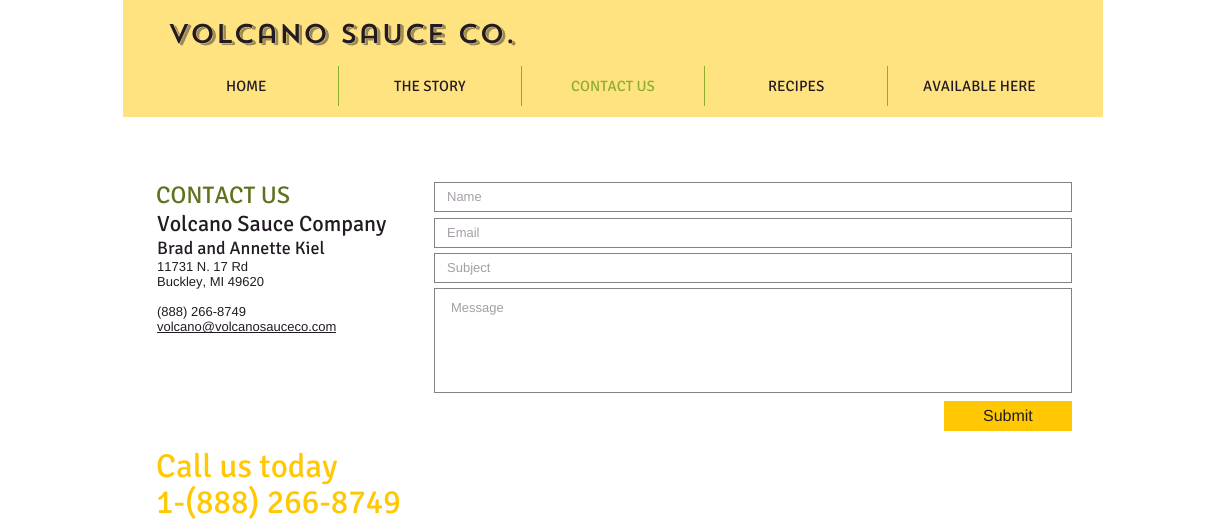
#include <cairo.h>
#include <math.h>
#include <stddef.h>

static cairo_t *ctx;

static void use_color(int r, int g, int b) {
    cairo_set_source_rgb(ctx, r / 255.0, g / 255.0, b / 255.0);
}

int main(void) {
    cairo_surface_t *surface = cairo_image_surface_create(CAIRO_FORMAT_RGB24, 1226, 519);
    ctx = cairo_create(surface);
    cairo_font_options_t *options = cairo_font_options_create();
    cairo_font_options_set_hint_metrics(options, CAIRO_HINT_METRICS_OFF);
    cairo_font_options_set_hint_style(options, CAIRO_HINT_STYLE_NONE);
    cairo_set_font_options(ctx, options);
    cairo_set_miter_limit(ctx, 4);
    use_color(255, 255, 255);
    cairo_paint(ctx);
    use_color(255, 227, 128);
    cairo_rectangle(ctx, 123, 0, 980, 117);
    cairo_fill(ctx);
    cairo_select_font_face(ctx, "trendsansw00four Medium", CAIRO_FONT_SLANT_NORMAL, CAIRO_FONT_WEIGHT_NORMAL);
    cairo_set_font_size(ctx, 27);
    use_color(34, 27, 35);
    cairo_move_to(ctx, 168, 43);
    cairo_show_text(ctx, "Volcano Sauce Co.");
    cairo_select_font_face(ctx, "Signika", CAIRO_FONT_SLANT_NORMAL, CAIRO_FONT_WEIGHT_NORMAL);
    cairo_set_font_size(ctx, 15);
    cairo_move_to(ctx, 226, 91);
    cairo_show_text(ctx, "HOME");
    use_color(141, 173, 45);
    cairo_rectangle(ctx, 338, 66, 1, 40);
    cairo_fill(ctx);
    use_color(34, 27, 35);
    cairo_move_to(ctx, 394, 91);
    cairo_show_text(ctx, "THE STORY");
    use_color(141, 173, 45);
    cairo_rectangle(ctx, 521, 66, 1, 40);
    cairo_fill(ctx);
    cairo_move_to(ctx, 571, 91);
    cairo_show_text(ctx, "CONTACT US");
    cairo_rectangle(ctx, 704, 66, 1, 40);
    cairo_fill(ctx);
    use_color(34, 27, 35);
    cairo_move_to(ctx, 768, 91);
    cairo_show_text(ctx, "RECIPES");
    use_color(141, 173, 45);
    cairo_rectangle(ctx, 887, 66, 1, 40);
    cairo_fill(ctx);
    use_color(34, 27, 35);
    cairo_move_to(ctx, 923, 91);
    cairo_show_text(ctx, "AVAILABLE HERE");
    cairo_set_font_size(ctx, 24);
    use_color(94, 115, 30);
    cairo_move_to(ctx, 156, 203);
    cairo_show_text(ctx, "CONTACT US");
    cairo_rectangle(ctx, 434.5, 182.5, 637, 29);
    use_color(133, 130, 134);
    cairo_set_line_width(ctx, 1);
    cairo_stroke(ctx);
    cairo_select_font_face(ctx, "Liberation Sans", CAIRO_FONT_SLANT_NORMAL, CAIRO_FONT_WEIGHT_NORMAL);
    cairo_set_font_size(ctx, 13);
    use_color(166, 158, 167);
    cairo_move_to(ctx, 447, 201);
    cairo_show_text(ctx, "Name");
    cairo_rectangle(ctx, 434.5, 218.5, 637, 29);
    use_color(133, 130, 134);
    cairo_stroke(ctx);
    use_color(166, 158, 167);
    cairo_move_to(ctx, 447, 237);
    cairo_show_text(ctx, "Email");
    cairo_rectangle(ctx, 434.5, 253.5, 637, 29);
    use_color(133, 130, 134);
    cairo_stroke(ctx);
    use_color(166, 158, 167);
    cairo_move_to(ctx, 447, 272);
    cairo_show_text(ctx, "Subject");
    cairo_rectangle(ctx, 434.5, 288.5, 637, 104);
    use_color(133, 130, 134);
    cairo_stroke(ctx);
    use_color(166, 158, 167);
    cairo_move_to(ctx, 451, 312);
    cairo_show_text(ctx, "Message");
    use_color(255, 200, 2);
    cairo_rectangle(ctx, 944, 401, 128, 30);
    cairo_fill(ctx);
    cairo_set_font_size(ctx, 16);
    use_color(34, 27, 35);
    cairo_move_to(ctx, 983, 421);
    cairo_show_text(ctx, "Submit");
    cairo_select_font_face(ctx, "Signika", CAIRO_FONT_SLANT_NORMAL, CAIRO_FONT_WEIGHT_NORMAL);
    cairo_set_font_size(ctx, 22);
    cairo_move_to(ctx, 157, 231);
    cairo_show_text(ctx, "Volcano Sauce Company");
    cairo_set_font_size(ctx, 18);
    cairo_move_to(ctx, 157, 254);
    cairo_show_text(ctx, "Brad and Annette Kiel");
    cairo_select_font_face(ctx, "Liberation Sans", CAIRO_FONT_SLANT_NORMAL, CAIRO_FONT_WEIGHT_NORMAL);
    cairo_set_font_size(ctx, 13);
    cairo_move_to(ctx, 157, 271);
    cairo_show_text(ctx, "11731 N. 17 Rd");
    cairo_move_to(ctx, 157, 286);
    cairo_show_text(ctx, "Buckley, MI 49620");
    cairo_move_to(ctx, 157, 316);
    cairo_show_text(ctx, "(888) 266-8749");
    cairo_rectangle(ctx, 157, 332, 179, 1);
    cairo_fill(ctx);
    cairo_move_to(ctx, 157, 331);
    cairo_show_text(ctx, "volcano@volcanosauceco.com");
    cairo_select_font_face(ctx, "Signika", CAIRO_FONT_SLANT_NORMAL, CAIRO_FONT_WEIGHT_NORMAL);
    cairo_set_font_size(ctx, 33);
    use_color(255, 200, 2);
    cairo_move_to(ctx, 156, 477);
    cairo_show_text(ctx, "Call us today");
    cairo_move_to(ctx, 156, 513);
    cairo_show_text(ctx, "1-(888) 266-8749");
    cairo_surface_write_to_png(surface, "result.png");
    cairo_font_options_destroy(options);
    cairo_destroy(ctx);
    cairo_surface_destroy(surface);
    return 0;
}
